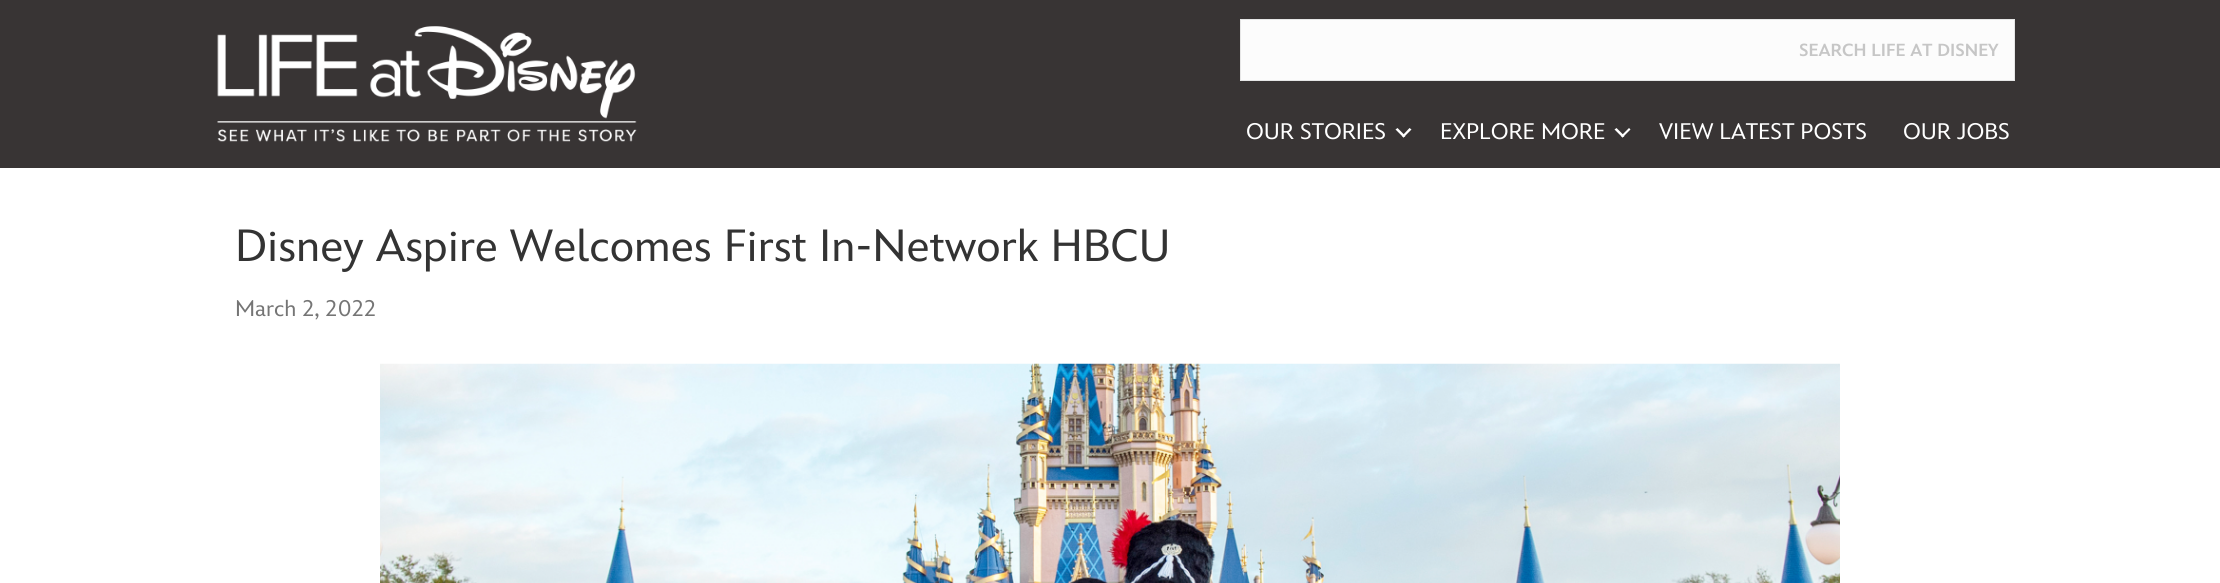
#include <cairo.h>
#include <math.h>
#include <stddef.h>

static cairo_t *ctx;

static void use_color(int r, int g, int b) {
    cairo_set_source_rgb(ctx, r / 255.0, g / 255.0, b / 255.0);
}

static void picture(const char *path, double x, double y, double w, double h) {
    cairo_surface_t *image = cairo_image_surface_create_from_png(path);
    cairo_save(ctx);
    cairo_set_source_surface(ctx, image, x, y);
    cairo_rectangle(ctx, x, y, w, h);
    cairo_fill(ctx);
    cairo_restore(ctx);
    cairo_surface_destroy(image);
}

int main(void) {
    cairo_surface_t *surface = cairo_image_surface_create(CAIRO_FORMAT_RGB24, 2220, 583);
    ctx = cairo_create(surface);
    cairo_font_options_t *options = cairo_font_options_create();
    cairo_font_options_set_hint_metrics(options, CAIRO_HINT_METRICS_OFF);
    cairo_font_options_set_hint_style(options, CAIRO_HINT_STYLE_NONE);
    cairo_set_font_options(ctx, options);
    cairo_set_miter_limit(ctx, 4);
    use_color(255, 255, 255);
    cairo_paint(ctx);
    use_color(56, 52, 52);
    cairo_rectangle(ctx, 0, 0, 2220, 168);
    cairo_fill(ctx);
    picture("img1.png", 217, 26, 420, 116);
    use_color(252, 252, 252);
    cairo_rectangle(ctx, 1240.5, 19.5, 774, 61);
    cairo_fill_preserve(ctx);
    use_color(230, 230, 230);
    cairo_set_line_width(ctx, 1);
    cairo_stroke(ctx);
    cairo_select_font_face(ctx, "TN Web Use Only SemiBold", CAIRO_FONT_SLANT_NORMAL, CAIRO_FONT_WEIGHT_NORMAL);
    cairo_set_font_size(ctx, 17.5);
    use_color(198, 198, 198);
    cairo_move_to(ctx, 1799, 56);
    cairo_show_text(ctx, "SEARCH LIFE AT DISNEY");
    cairo_select_font_face(ctx, "TN Web Use Only", CAIRO_FONT_SLANT_NORMAL, CAIRO_FONT_WEIGHT_NORMAL);
    cairo_set_font_size(ctx, 22.5);
    use_color(255, 255, 255);
    cairo_move_to(ctx, 1246, 139);
    cairo_show_text(ctx, "OUR STORIES");
    cairo_new_path(ctx);
    cairo_move_to(ctx, 1409.5, 128);
    cairo_line_to(ctx, 1411.5, 129.5);
    cairo_line_to(ctx, 1403.5, 137.5);
    cairo_line_to(ctx, 1402, 136);
    cairo_close_path(ctx);
    cairo_fill(ctx);
    cairo_new_path(ctx);
    cairo_move_to(ctx, 1397.5, 128);
    cairo_line_to(ctx, 1405.5, 136);
    cairo_line_to(ctx, 1403.5, 137.5);
    cairo_line_to(ctx, 1395.5, 129.5);
    cairo_close_path(ctx);
    cairo_fill(ctx);
    cairo_move_to(ctx, 1440, 139);
    cairo_show_text(ctx, "EXPLORE MORE");
    cairo_new_path(ctx);
    cairo_move_to(ctx, 1629, 128);
    cairo_line_to(ctx, 1630.5, 129.5);
    cairo_line_to(ctx, 1622.5, 137.5);
    cairo_line_to(ctx, 1621, 136);
    cairo_close_path(ctx);
    cairo_fill(ctx);
    cairo_new_path(ctx);
    cairo_move_to(ctx, 1616.5, 128);
    cairo_line_to(ctx, 1624.5, 136);
    cairo_line_to(ctx, 1622.5, 137.5);
    cairo_line_to(ctx, 1614.5, 129.5);
    cairo_close_path(ctx);
    cairo_fill(ctx);
    cairo_move_to(ctx, 1659, 139);
    cairo_show_text(ctx, "VIEW LATEST POSTS");
    cairo_move_to(ctx, 1903, 139);
    cairo_show_text(ctx, "OUR JOBS");
    cairo_set_font_size(ctx, 45);
    use_color(51, 51, 51);
    cairo_move_to(ctx, 235, 261);
    cairo_show_text(ctx, "Disney Aspire Welcomes First In-Network HBCU");
    cairo_set_font_size(ctx, 22.5);
    use_color(117, 117, 117);
    cairo_move_to(ctx, 235, 316);
    cairo_show_text(ctx, "March 2, 2022");
    picture("img2.png", 380, 363, 1460, 220);
    cairo_surface_write_to_png(surface, "result.png");
    cairo_font_options_destroy(options);
    cairo_destroy(ctx);
    cairo_surface_destroy(surface);
    return 0;
}
